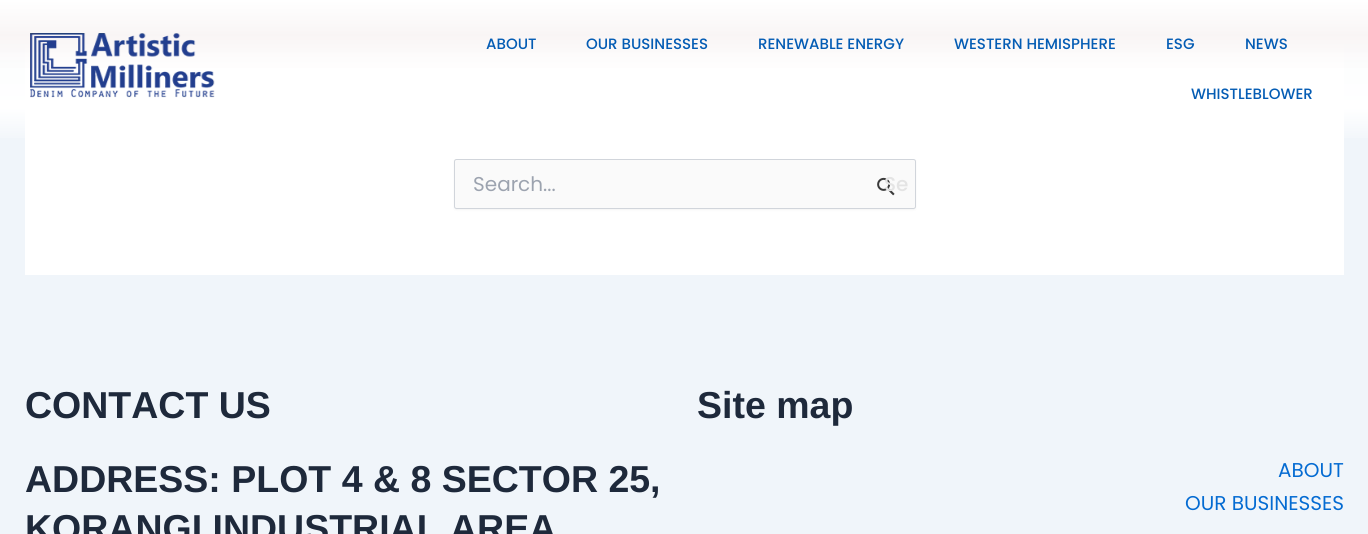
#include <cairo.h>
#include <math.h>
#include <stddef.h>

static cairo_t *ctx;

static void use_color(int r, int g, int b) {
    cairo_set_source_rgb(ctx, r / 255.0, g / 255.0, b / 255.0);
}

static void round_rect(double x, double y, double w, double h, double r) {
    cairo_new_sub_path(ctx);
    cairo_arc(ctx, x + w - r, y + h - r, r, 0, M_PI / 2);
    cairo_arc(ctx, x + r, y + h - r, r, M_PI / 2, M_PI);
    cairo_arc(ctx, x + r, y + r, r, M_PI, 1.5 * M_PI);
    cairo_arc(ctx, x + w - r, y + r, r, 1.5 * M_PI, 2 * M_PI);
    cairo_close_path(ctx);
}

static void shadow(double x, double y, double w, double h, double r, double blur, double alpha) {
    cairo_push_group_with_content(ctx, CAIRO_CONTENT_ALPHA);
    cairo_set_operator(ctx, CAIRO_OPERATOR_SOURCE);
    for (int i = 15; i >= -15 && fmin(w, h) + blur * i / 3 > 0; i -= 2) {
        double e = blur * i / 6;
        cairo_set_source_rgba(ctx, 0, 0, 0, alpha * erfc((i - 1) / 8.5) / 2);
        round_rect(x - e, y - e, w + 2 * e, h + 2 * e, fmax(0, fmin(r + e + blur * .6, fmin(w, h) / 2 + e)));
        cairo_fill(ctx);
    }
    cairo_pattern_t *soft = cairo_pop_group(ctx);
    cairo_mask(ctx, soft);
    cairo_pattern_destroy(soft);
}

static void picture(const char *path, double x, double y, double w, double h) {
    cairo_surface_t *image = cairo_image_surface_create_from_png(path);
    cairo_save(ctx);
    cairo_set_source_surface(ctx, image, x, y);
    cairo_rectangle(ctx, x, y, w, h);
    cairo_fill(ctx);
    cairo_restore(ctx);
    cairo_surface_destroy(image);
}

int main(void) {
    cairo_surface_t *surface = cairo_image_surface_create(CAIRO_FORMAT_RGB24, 1368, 534);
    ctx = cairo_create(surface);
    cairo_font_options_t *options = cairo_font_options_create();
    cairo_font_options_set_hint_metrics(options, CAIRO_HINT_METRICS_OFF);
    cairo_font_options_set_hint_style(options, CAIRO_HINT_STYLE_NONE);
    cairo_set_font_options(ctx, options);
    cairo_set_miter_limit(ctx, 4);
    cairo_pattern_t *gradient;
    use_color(240, 245, 250);
    cairo_paint(ctx);
    use_color(255, 255, 255);
    cairo_rectangle(ctx, 25, 37, 1319, 238);
    cairo_fill(ctx);
    gradient = cairo_pattern_create_linear(684, 0, 684, 144);
    cairo_pattern_add_color_stop_rgba(gradient, 0, 1, 1, 1, 1);
    cairo_pattern_add_color_stop_rgba(gradient, 0.25, 0.976, 0.961, 0.961, 1);
    cairo_pattern_add_color_stop_rgba(gradient, 0.5, 1, 1, 1, 0.85);
    cairo_pattern_add_color_stop_rgba(gradient, 0.75, 1, 1, 1, 1);
    cairo_pattern_add_color_stop_rgba(gradient, 1, 1, 1, 1, 0);
    cairo_set_source(ctx, gradient);
    cairo_pattern_destroy(gradient);
    cairo_rectangle(ctx, 0, 0, 1368, 138);
    cairo_fill(ctx);
    picture("img1.png", 30, 33, 185, 65);
    cairo_select_font_face(ctx, "Poppins Medium", CAIRO_FONT_SLANT_NORMAL, CAIRO_FONT_WEIGHT_NORMAL);
    cairo_set_font_size(ctx, 15);
    use_color(4, 92, 180);
    cairo_move_to(ctx, 486, 49);
    cairo_show_text(ctx, "ABOUT");
    cairo_move_to(ctx, 586, 49);
    cairo_show_text(ctx, "OUR BUSINESSES");
    cairo_move_to(ctx, 758, 49);
    cairo_show_text(ctx, "RENEWABLE ENERGY");
    cairo_move_to(ctx, 954, 49);
    cairo_show_text(ctx, "WESTERN HEMISPHERE");
    cairo_move_to(ctx, 1166, 49);
    cairo_show_text(ctx, "ESG");
    cairo_move_to(ctx, 1245, 49);
    cairo_show_text(ctx, "NEWS");
    cairo_move_to(ctx, 1191, 99);
    cairo_show_text(ctx, "WHISTLEBLOWER");
    use_color(0, 0, 0);
    shadow(454, 160, 462, 50, 2.5, 1, 0.05);
    use_color(250, 250, 250);
    round_rect(454.5, 159.5, 461, 49, 2);
    cairo_fill_preserve(ctx);
    use_color(209, 213, 219);
    cairo_set_line_width(ctx, 1);
    cairo_stroke(ctx);
    cairo_select_font_face(ctx, "Poppins", CAIRO_FONT_SLANT_NORMAL, CAIRO_FONT_WEIGHT_NORMAL);
    cairo_set_font_size(ctx, 20);
    use_color(156, 163, 175);
    cairo_move_to(ctx, 473, 191);
    cairo_show_text(ctx, "Search...");
    picture("img2.png", 877, 177, 18, 19);
    cairo_select_font_face(ctx, "Poppins Medium", CAIRO_FONT_SLANT_NORMAL, CAIRO_FONT_WEIGHT_NORMAL);
    use_color(228, 228, 228);
    cairo_move_to(ctx, 884, 191);
    cairo_show_text(ctx, "Se");
    cairo_select_font_face(ctx, "Liberation Sans", CAIRO_FONT_SLANT_NORMAL, CAIRO_FONT_WEIGHT_BOLD);
    cairo_set_font_size(ctx, 37.5);
    use_color(30, 41, 59);
    cairo_move_to(ctx, 25, 418);
    cairo_show_text(ctx, "CONTACT US");
    cairo_move_to(ctx, 25, 492);
    cairo_show_text(ctx, "ADDRESS: PLOT 4 & 8 SECTOR 25,");
    cairo_move_to(ctx, 25, 541);
    cairo_show_text(ctx, "KORANGI INDUSTRIAL AREA");
    cairo_move_to(ctx, 697, 418);
    cairo_show_text(ctx, "Site map");
    cairo_select_font_face(ctx, "Poppins", CAIRO_FONT_SLANT_NORMAL, CAIRO_FONT_WEIGHT_NORMAL);
    cairo_set_font_size(ctx, 20);
    use_color(4, 107, 210);
    cairo_move_to(ctx, 1278, 477);
    cairo_show_text(ctx, "ABOUT");
    cairo_move_to(ctx, 1185, 510);
    cairo_show_text(ctx, "OUR BUSINESSES");
    cairo_surface_write_to_png(surface, "result.png");
    cairo_font_options_destroy(options);
    cairo_destroy(ctx);
    cairo_surface_destroy(surface);
    return 0;
}
